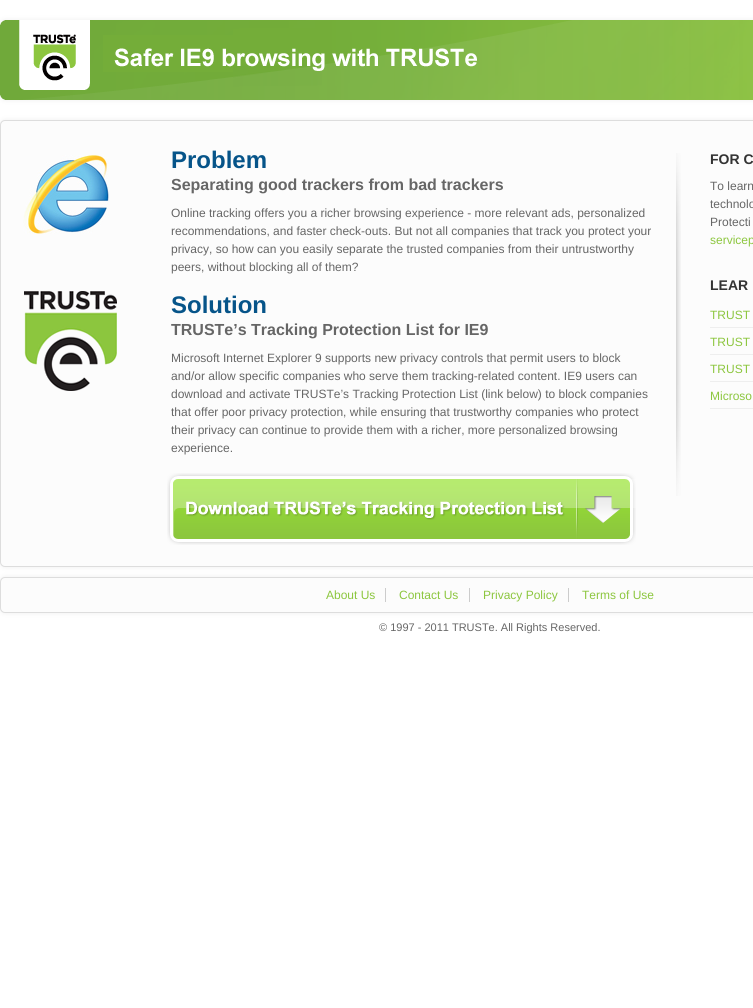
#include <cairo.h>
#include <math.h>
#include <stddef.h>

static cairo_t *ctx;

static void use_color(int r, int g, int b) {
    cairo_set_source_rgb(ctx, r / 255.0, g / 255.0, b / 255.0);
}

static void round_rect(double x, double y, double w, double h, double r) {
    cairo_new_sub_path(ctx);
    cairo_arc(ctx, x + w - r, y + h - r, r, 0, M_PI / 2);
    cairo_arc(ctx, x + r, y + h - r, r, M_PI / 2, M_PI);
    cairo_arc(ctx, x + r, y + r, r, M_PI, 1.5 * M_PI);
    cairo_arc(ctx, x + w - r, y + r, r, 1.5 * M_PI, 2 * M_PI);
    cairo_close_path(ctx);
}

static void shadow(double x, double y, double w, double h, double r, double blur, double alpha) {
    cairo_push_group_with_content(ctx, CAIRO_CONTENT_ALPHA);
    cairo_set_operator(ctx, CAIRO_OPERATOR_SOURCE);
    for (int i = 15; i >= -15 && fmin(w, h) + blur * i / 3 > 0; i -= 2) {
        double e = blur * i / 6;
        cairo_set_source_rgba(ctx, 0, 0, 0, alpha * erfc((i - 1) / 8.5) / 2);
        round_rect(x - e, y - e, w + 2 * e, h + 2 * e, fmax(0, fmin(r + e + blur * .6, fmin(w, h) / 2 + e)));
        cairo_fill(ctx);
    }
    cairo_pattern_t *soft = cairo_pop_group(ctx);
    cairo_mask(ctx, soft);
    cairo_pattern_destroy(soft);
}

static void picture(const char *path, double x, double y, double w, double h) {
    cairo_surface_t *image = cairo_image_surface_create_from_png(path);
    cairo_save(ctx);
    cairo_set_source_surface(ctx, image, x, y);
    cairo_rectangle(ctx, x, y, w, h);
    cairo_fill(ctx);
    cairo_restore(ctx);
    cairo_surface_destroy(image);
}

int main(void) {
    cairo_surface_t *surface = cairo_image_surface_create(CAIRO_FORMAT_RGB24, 753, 1008);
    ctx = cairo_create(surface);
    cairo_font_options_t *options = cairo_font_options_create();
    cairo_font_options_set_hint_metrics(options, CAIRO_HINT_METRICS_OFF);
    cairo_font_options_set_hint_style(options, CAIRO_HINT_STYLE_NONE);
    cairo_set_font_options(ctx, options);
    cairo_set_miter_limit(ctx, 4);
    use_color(255, 255, 255);
    cairo_paint(ctx);
    use_color(238, 238, 238);
    shadow(0, 20, 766, 80, 5, 2.5, 1);
    picture("img1.png", 0, 20, 753, 80);
    shadow(0, 120, 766, 447, 5, 2.5, 1);
    use_color(252, 252, 252);
    round_rect(0.5, 120.5, 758, 446, 4.5);
    cairo_fill_preserve(ctx);
    use_color(221, 221, 221);
    cairo_set_line_width(ctx, 1);
    cairo_stroke(ctx);
    picture("img2.png", 676, 153, 5, 343);
    picture("img3.png", 23, 155, 86, 79);
    cairo_select_font_face(ctx, "Liberation Sans", CAIRO_FONT_SLANT_NORMAL, CAIRO_FONT_WEIGHT_BOLD);
    cairo_set_font_size(ctx, 24);
    use_color(6, 84, 137);
    cairo_move_to(ctx, 171, 168);
    cairo_show_text(ctx, "Problem");
    cairo_set_font_size(ctx, 16);
    use_color(102, 102, 102);
    cairo_move_to(ctx, 171, 190);
    cairo_show_text(ctx, "Separating good trackers from bad trackers");
    cairo_select_font_face(ctx, "Liberation Sans", CAIRO_FONT_SLANT_NORMAL, CAIRO_FONT_WEIGHT_NORMAL);
    cairo_set_font_size(ctx, 12);
    cairo_move_to(ctx, 171, 217);
    cairo_show_text(ctx, "Online tracking offers you a richer browsing experience - more relevant ads, personalized");
    cairo_move_to(ctx, 171, 235);
    cairo_show_text(ctx, "recommendations, and faster check-outs. But not all companies that track you protect your");
    cairo_move_to(ctx, 171, 253);
    cairo_show_text(ctx, "privacy, so how can you easily separate the trusted companies from their untrustworthy");
    cairo_move_to(ctx, 171, 271);
    cairo_show_text(ctx, "peers, without blocking all of them?");
    picture("img4.png", 24, 291, 93, 100);
    cairo_select_font_face(ctx, "Liberation Sans", CAIRO_FONT_SLANT_NORMAL, CAIRO_FONT_WEIGHT_BOLD);
    cairo_set_font_size(ctx, 24);
    use_color(6, 84, 137);
    cairo_move_to(ctx, 171, 313);
    cairo_show_text(ctx, "Solution");
    cairo_set_font_size(ctx, 16);
    use_color(102, 102, 102);
    cairo_move_to(ctx, 171, 335);
    cairo_show_text(ctx, "TRUSTe’s Tracking Protection List for IE9");
    cairo_select_font_face(ctx, "Liberation Sans", CAIRO_FONT_SLANT_NORMAL, CAIRO_FONT_WEIGHT_NORMAL);
    cairo_set_font_size(ctx, 12);
    cairo_move_to(ctx, 171, 362);
    cairo_show_text(ctx, "Microsoft Internet Explorer 9 supports new privacy controls that permit users to block");
    cairo_move_to(ctx, 171, 380);
    cairo_show_text(ctx, "and/or allow specific companies who serve them tracking-related content. IE9 users can");
    cairo_move_to(ctx, 171, 398);
    cairo_show_text(ctx, "download and activate TRUSTe’s Tracking Protection List (link below) to block companies");
    cairo_move_to(ctx, 171, 416);
    cairo_show_text(ctx, "that offer poor privacy protection, while ensuring that trustworthy companies who protect");
    cairo_move_to(ctx, 171, 434);
    cairo_show_text(ctx, "their privacy can continue to provide them with a richer, more personalized browsing");
    cairo_move_to(ctx, 171, 452);
    cairo_show_text(ctx, "experience.");
    picture("img5.png", 167, 473, 469, 72);
    cairo_select_font_face(ctx, "Liberation Sans", CAIRO_FONT_SLANT_NORMAL, CAIRO_FONT_WEIGHT_BOLD);
    cairo_set_font_size(ctx, 14);
    use_color(51, 51, 51);
    cairo_move_to(ctx, 710, 164);
    cairo_show_text(ctx, "FOR C");
    cairo_select_font_face(ctx, "Liberation Sans", CAIRO_FONT_SLANT_NORMAL, CAIRO_FONT_WEIGHT_NORMAL);
    cairo_set_font_size(ctx, 12);
    use_color(102, 102, 102);
    cairo_move_to(ctx, 710, 190);
    cairo_show_text(ctx, "To learn");
    cairo_move_to(ctx, 710, 208);
    cairo_show_text(ctx, "technolo");
    cairo_move_to(ctx, 710, 226);
    cairo_show_text(ctx, "Protecti");
    use_color(140, 198, 62);
    cairo_move_to(ctx, 710, 244);
    cairo_show_text(ctx, "servicep");
    cairo_select_font_face(ctx, "Liberation Sans", CAIRO_FONT_SLANT_NORMAL, CAIRO_FONT_WEIGHT_BOLD);
    cairo_set_font_size(ctx, 14);
    use_color(51, 51, 51);
    cairo_move_to(ctx, 710, 290);
    cairo_show_text(ctx, "LEAR");
    use_color(238, 238, 238);
    cairo_rectangle(ctx, 710, 327, 43, 1);
    cairo_fill(ctx);
    cairo_select_font_face(ctx, "Liberation Sans", CAIRO_FONT_SLANT_NORMAL, CAIRO_FONT_WEIGHT_NORMAL);
    cairo_set_font_size(ctx, 12);
    use_color(140, 198, 62);
    cairo_move_to(ctx, 710, 319);
    cairo_show_text(ctx, "TRUST");
    use_color(238, 238, 238);
    cairo_rectangle(ctx, 710, 354, 43, 1);
    cairo_fill(ctx);
    use_color(140, 198, 62);
    cairo_move_to(ctx, 710, 346);
    cairo_show_text(ctx, "TRUST");
    use_color(238, 238, 238);
    cairo_rectangle(ctx, 710, 381, 43, 1);
    cairo_fill(ctx);
    use_color(140, 198, 62);
    cairo_move_to(ctx, 710, 373);
    cairo_show_text(ctx, "TRUST");
    use_color(238, 238, 238);
    cairo_rectangle(ctx, 710, 408, 43, 1);
    cairo_fill(ctx);
    use_color(140, 198, 62);
    cairo_move_to(ctx, 710, 400);
    cairo_show_text(ctx, "Microso");
    use_color(238, 238, 238);
    shadow(0, 577, 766, 36, 5, 2.5, 1);
    use_color(252, 252, 252);
    round_rect(0.5, 577.5, 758, 35, 4.5);
    cairo_fill_preserve(ctx);
    use_color(221, 221, 221);
    cairo_stroke(ctx);
    use_color(140, 198, 62);
    cairo_move_to(ctx, 326, 599);
    cairo_show_text(ctx, "About Us");
    use_color(204, 204, 204);
    cairo_rectangle(ctx, 385, 588, 1, 14);
    cairo_fill(ctx);
    use_color(140, 198, 62);
    cairo_move_to(ctx, 399, 599);
    cairo_show_text(ctx, "Contact Us");
    use_color(204, 204, 204);
    cairo_rectangle(ctx, 469, 588, 1, 14);
    cairo_fill(ctx);
    use_color(140, 198, 62);
    cairo_move_to(ctx, 483, 599);
    cairo_show_text(ctx, "Privacy Policy");
    use_color(204, 204, 204);
    cairo_rectangle(ctx, 568, 588, 1, 14);
    cairo_fill(ctx);
    use_color(140, 198, 62);
    cairo_move_to(ctx, 582, 599);
    cairo_show_text(ctx, "Terms of Use");
    cairo_set_font_size(ctx, 11);
    use_color(102, 102, 102);
    cairo_move_to(ctx, 379, 631);
    cairo_show_text(ctx, "© 1997 - 2011 TRUSTe. All Rights Reserved.");
    cairo_surface_write_to_png(surface, "result.png");
    cairo_font_options_destroy(options);
    cairo_destroy(ctx);
    cairo_surface_destroy(surface);
    return 0;
}
